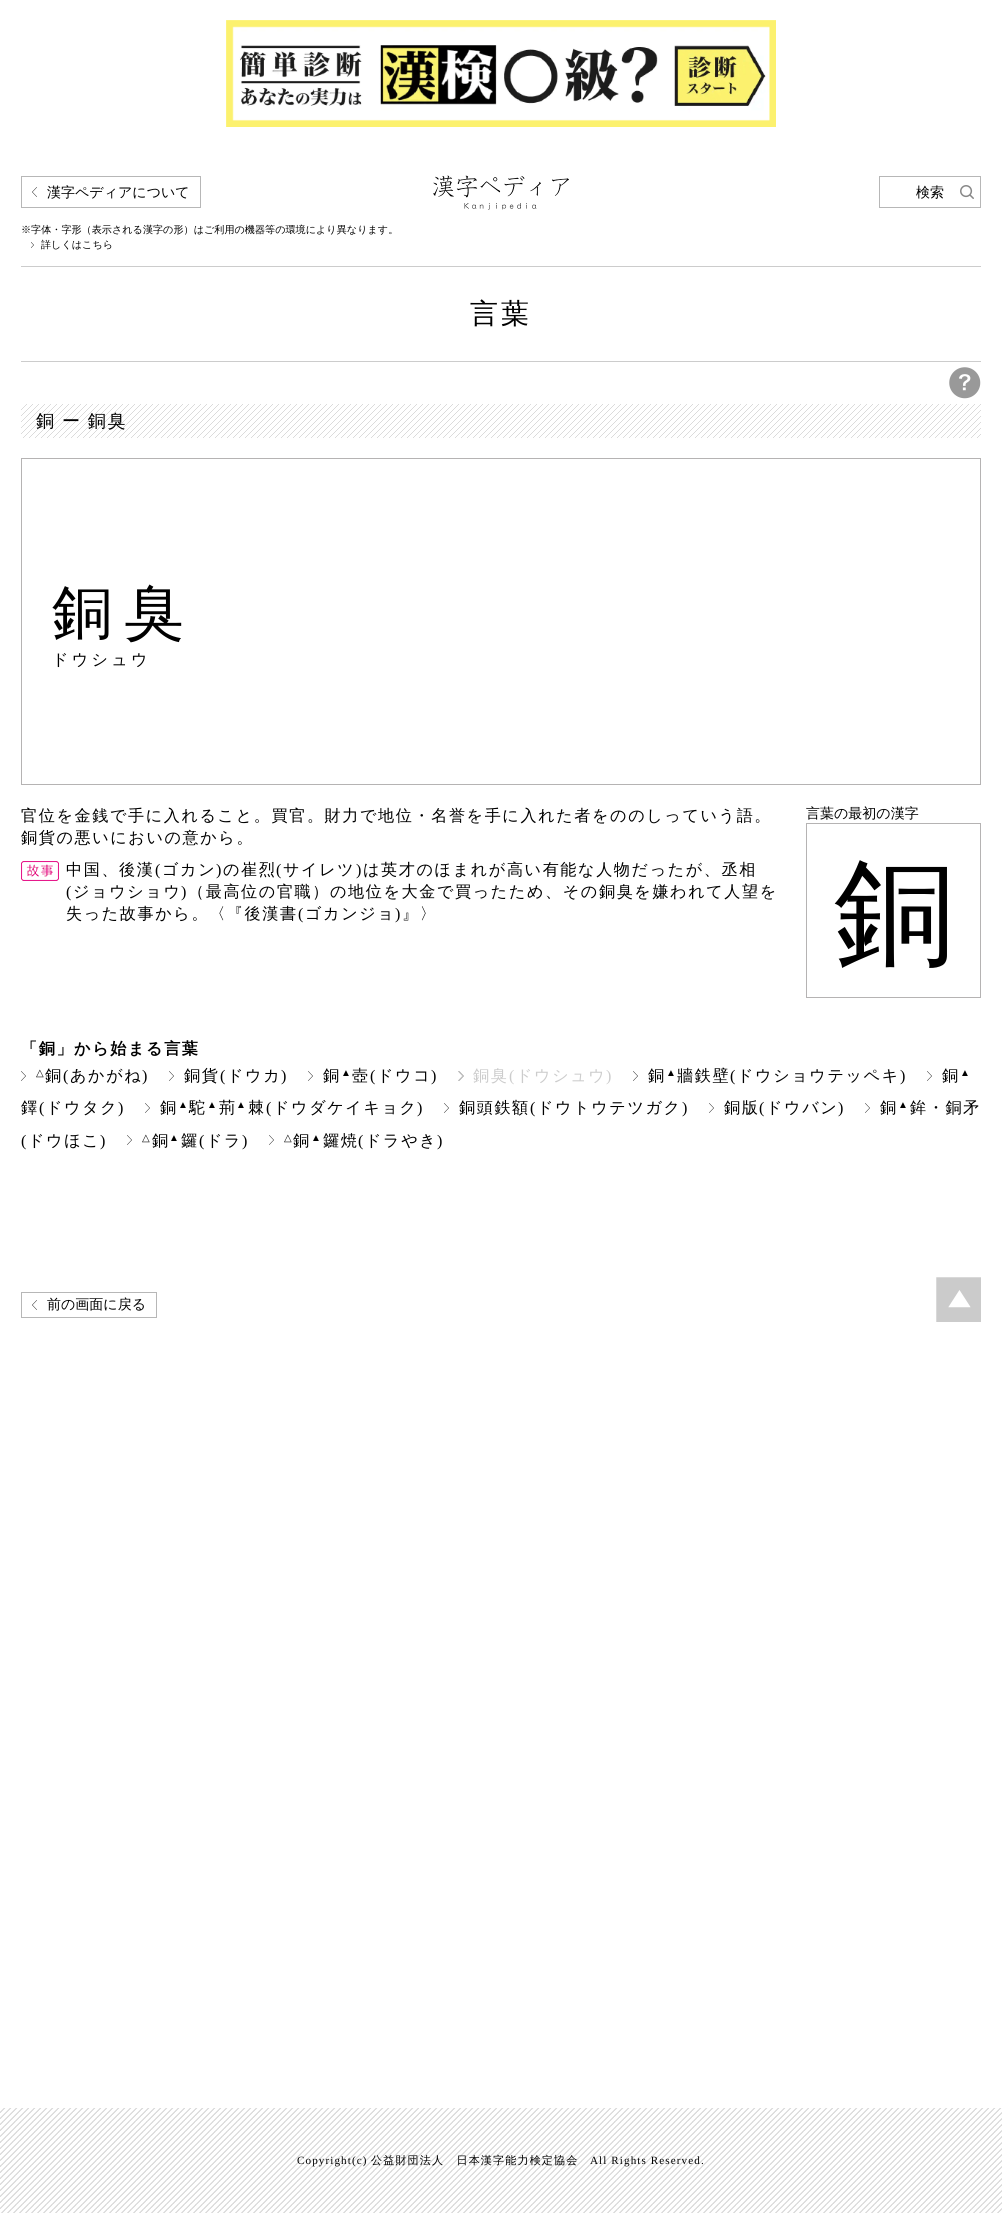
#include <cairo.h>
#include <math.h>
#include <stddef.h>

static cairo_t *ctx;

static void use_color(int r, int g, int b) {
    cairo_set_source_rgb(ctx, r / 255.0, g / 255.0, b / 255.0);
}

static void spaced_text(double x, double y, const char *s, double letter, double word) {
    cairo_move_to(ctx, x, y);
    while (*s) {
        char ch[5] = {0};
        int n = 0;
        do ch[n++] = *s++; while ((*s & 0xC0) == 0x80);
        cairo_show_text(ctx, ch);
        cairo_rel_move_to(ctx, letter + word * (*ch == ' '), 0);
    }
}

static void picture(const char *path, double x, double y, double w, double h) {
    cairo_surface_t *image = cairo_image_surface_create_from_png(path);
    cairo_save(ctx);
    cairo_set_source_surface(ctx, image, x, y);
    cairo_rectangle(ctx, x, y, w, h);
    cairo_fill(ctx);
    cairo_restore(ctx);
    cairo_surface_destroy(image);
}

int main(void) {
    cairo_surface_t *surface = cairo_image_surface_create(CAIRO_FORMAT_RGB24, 1002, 2213);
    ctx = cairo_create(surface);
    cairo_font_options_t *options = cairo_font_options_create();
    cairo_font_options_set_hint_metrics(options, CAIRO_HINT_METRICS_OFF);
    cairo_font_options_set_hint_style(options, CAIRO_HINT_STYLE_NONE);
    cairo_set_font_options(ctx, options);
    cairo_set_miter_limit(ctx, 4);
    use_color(255, 255, 255);
    cairo_paint(ctx);
    picture("img1.png", 226, 20, 550, 107);
    picture("img2.png", 32, 187, 5, 10);
    cairo_rectangle(ctx, 21.5, 176.5, 179, 31);
    use_color(183, 183, 183);
    cairo_set_line_width(ctx, 1);
    cairo_stroke(ctx);
    cairo_select_font_face(ctx, "WenQuanYi Zen Hei Medium", CAIRO_FONT_SLANT_NORMAL, CAIRO_FONT_WEIGHT_NORMAL);
    cairo_set_font_size(ctx, 14);
    use_color(0, 0, 0);
    cairo_move_to(ctx, 47, 197);
    cairo_show_text(ctx, "漢字ペディアについて");
    cairo_set_font_size(ctx, 10.1);
    cairo_move_to(ctx, 21, 233);
    cairo_show_text(ctx, "※字体・字形（表示される漢字の形）はご利用の機器等の環境により異なります。");
    picture("img3.png", 31, 242, 3, 6);
    cairo_move_to(ctx, 41, 248);
    cairo_show_text(ctx, "詳しくはこちら");
    picture("img4.png", 433, 175, 136, 35);
    picture("img5.png", 960, 185, 14, 14);
    cairo_rectangle(ctx, 879.5, 176.5, 101, 31);
    use_color(183, 183, 183);
    cairo_stroke(ctx);
    cairo_set_font_size(ctx, 14);
    use_color(0, 0, 0);
    cairo_move_to(ctx, 916, 197);
    cairo_show_text(ctx, "検索");
    use_color(204, 204, 204);
    cairo_rectangle(ctx, 21, 266, 960, 1);
    cairo_fill(ctx);
    cairo_rectangle(ctx, 21, 361, 960, 1);
    cairo_fill(ctx);
    cairo_set_font_size(ctx, 28);
    use_color(0, 0, 0);
    spaced_text(470, 323, "言葉", 3, 0);
    picture("img6.png", 949, 367, 32, 32);
    picture("img7.png", 21, 404, 960, 34);
    cairo_set_font_size(ctx, 18);
    spaced_text(36, 427, "銅 ー 銅臭", 1.75, -1);
    cairo_rectangle(ctx, 21.5, 458.5, 959, 326);
    use_color(181, 179, 179);
    cairo_stroke(ctx);
    cairo_set_font_size(ctx, 60);
    use_color(0, 0, 0);
    spaced_text(52, 633, "銅臭", 12, 0);
    cairo_set_font_size(ctx, 16.1);
    spaced_text(52, 665, "ドウシュウ", 3.25, 0);
    spaced_text(21, 821, "官位を金銭で手に入れること。買官。財力で地位・名誉を手に入れた者をののしっていう語。", 1.6, 0);
    spaced_text(21, 843, "銅貨の悪いにおいの意から。", 1.6, 0);
    picture("img8.png", 21, 861, 38, 20);
    spaced_text(66, 875, "中国、後漢", 1.6, 0);
    cairo_select_font_face(ctx, "Liberation Serif", CAIRO_FONT_SLANT_NORMAL, CAIRO_FONT_WEIGHT_NORMAL);
    spaced_text(155, 875, "(", 1.6, 0);
    cairo_select_font_face(ctx, "WenQuanYi Zen Hei Medium", CAIRO_FONT_SLANT_NORMAL, CAIRO_FONT_WEIGHT_NORMAL);
    spaced_text(162, 875, "ゴカン", 1.6, 0);
    cairo_select_font_face(ctx, "Liberation Serif", CAIRO_FONT_SLANT_NORMAL, CAIRO_FONT_WEIGHT_NORMAL);
    spaced_text(216, 875, ")", 1.6, 0);
    cairo_select_font_face(ctx, "WenQuanYi Zen Hei Medium", CAIRO_FONT_SLANT_NORMAL, CAIRO_FONT_WEIGHT_NORMAL);
    spaced_text(223, 875, "の崔烈", 1.6, 0);
    cairo_select_font_face(ctx, "Liberation Serif", CAIRO_FONT_SLANT_NORMAL, CAIRO_FONT_WEIGHT_NORMAL);
    spaced_text(276, 875, "(", 1.6, 0);
    cairo_select_font_face(ctx, "WenQuanYi Zen Hei Medium", CAIRO_FONT_SLANT_NORMAL, CAIRO_FONT_WEIGHT_NORMAL);
    spaced_text(283, 875, "サイレツ", 1.6, 0);
    cairo_select_font_face(ctx, "Liberation Serif", CAIRO_FONT_SLANT_NORMAL, CAIRO_FONT_WEIGHT_NORMAL);
    spaced_text(356, 875, ")", 1.6, 0);
    cairo_select_font_face(ctx, "WenQuanYi Zen Hei Medium", CAIRO_FONT_SLANT_NORMAL, CAIRO_FONT_WEIGHT_NORMAL);
    spaced_text(363, 875, "は英才のほまれが高い有能な人物だったが、丞相", 1.6, 0);
    cairo_select_font_face(ctx, "Liberation Serif", CAIRO_FONT_SLANT_NORMAL, CAIRO_FONT_WEIGHT_NORMAL);
    spaced_text(66, 897, "(", 1.6, 0);
    cairo_select_font_face(ctx, "WenQuanYi Zen Hei Medium", CAIRO_FONT_SLANT_NORMAL, CAIRO_FONT_WEIGHT_NORMAL);
    spaced_text(73, 897, "ジョウショウ", 1.6, 0);
    cairo_select_font_face(ctx, "Liberation Serif", CAIRO_FONT_SLANT_NORMAL, CAIRO_FONT_WEIGHT_NORMAL);
    spaced_text(181, 897, ")", 1.6, 0);
    cairo_select_font_face(ctx, "WenQuanYi Zen Hei Medium", CAIRO_FONT_SLANT_NORMAL, CAIRO_FONT_WEIGHT_NORMAL);
    spaced_text(188, 897, "（最高位の官職）の地位を大金で買ったため、その銅臭を嫌われて人望を", 1.6, 0);
    spaced_text(66, 919, "失った故事から。〈『後漢書", 1.6, 0);
    cairo_select_font_face(ctx, "Liberation Serif", CAIRO_FONT_SLANT_NORMAL, CAIRO_FONT_WEIGHT_NORMAL);
    spaced_text(298, 919, "(", 1.6, 0);
    cairo_select_font_face(ctx, "WenQuanYi Zen Hei Medium", CAIRO_FONT_SLANT_NORMAL, CAIRO_FONT_WEIGHT_NORMAL);
    spaced_text(305, 919, "ゴカンジョ", 1.6, 0);
    cairo_select_font_face(ctx, "Liberation Serif", CAIRO_FONT_SLANT_NORMAL, CAIRO_FONT_WEIGHT_NORMAL);
    spaced_text(395, 919, ")", 1.6, 0);
    cairo_select_font_face(ctx, "WenQuanYi Zen Hei Medium", CAIRO_FONT_SLANT_NORMAL, CAIRO_FONT_WEIGHT_NORMAL);
    spaced_text(402, 919, "』〉", 1.6, 0);
    cairo_set_font_size(ctx, 14);
    cairo_move_to(ctx, 806, 818);
    cairo_show_text(ctx, "言葉の最初の漢字");
    cairo_rectangle(ctx, 806.5, 823.5, 174, 174);
    use_color(181, 179, 179);
    cairo_stroke(ctx);
    cairo_set_font_size(ctx, 120);
    use_color(0, 0, 0);
    cairo_move_to(ctx, 834, 954);
    cairo_show_text(ctx, "銅");
    cairo_select_font_face(ctx, "WenQuanYi Zen Hei", CAIRO_FONT_SLANT_NORMAL, CAIRO_FONT_WEIGHT_BOLD);
    cairo_set_font_size(ctx, 16.1);
    spaced_text(21, 1054, "「銅」から始まる言葉", 1.6, 0);
    picture("img9.png", 21, 1071, 5, 10);
    cairo_select_font_face(ctx, "DejaVu Sans", CAIRO_FONT_SLANT_NORMAL, CAIRO_FONT_WEIGHT_NORMAL);
    cairo_set_font_size(ctx, 10);
    spaced_text(36, 1076, "△", 1.6, 0);
    cairo_select_font_face(ctx, "WenQuanYi Zen Hei Medium", CAIRO_FONT_SLANT_NORMAL, CAIRO_FONT_WEIGHT_NORMAL);
    cairo_set_font_size(ctx, 16.1);
    spaced_text(45, 1081, "銅", 1.6, 0);
    cairo_select_font_face(ctx, "Liberation Serif", CAIRO_FONT_SLANT_NORMAL, CAIRO_FONT_WEIGHT_NORMAL);
    spaced_text(63, 1081, "(", 1.6, 0);
    cairo_select_font_face(ctx, "WenQuanYi Zen Hei Medium", CAIRO_FONT_SLANT_NORMAL, CAIRO_FONT_WEIGHT_NORMAL);
    spaced_text(70, 1081, "あかがね", 1.6, 0);
    cairo_select_font_face(ctx, "Liberation Serif", CAIRO_FONT_SLANT_NORMAL, CAIRO_FONT_WEIGHT_NORMAL);
    spaced_text(142, 1081, ")", 1.6, 0);
    picture("img9.png", 169, 1071, 5, 10);
    cairo_select_font_face(ctx, "WenQuanYi Zen Hei Medium", CAIRO_FONT_SLANT_NORMAL, CAIRO_FONT_WEIGHT_NORMAL);
    spaced_text(184, 1081, "銅貨", 1.6, 0);
    cairo_select_font_face(ctx, "Liberation Serif", CAIRO_FONT_SLANT_NORMAL, CAIRO_FONT_WEIGHT_NORMAL);
    spaced_text(220, 1081, "(", 1.6, 0);
    cairo_select_font_face(ctx, "WenQuanYi Zen Hei Medium", CAIRO_FONT_SLANT_NORMAL, CAIRO_FONT_WEIGHT_NORMAL);
    spaced_text(227, 1081, "ドウカ", 1.6, 0);
    cairo_select_font_face(ctx, "Liberation Serif", CAIRO_FONT_SLANT_NORMAL, CAIRO_FONT_WEIGHT_NORMAL);
    spaced_text(281, 1081, ")", 1.6, 0);
    picture("img9.png", 308, 1071, 5, 10);
    cairo_select_font_face(ctx, "WenQuanYi Zen Hei Medium", CAIRO_FONT_SLANT_NORMAL, CAIRO_FONT_WEIGHT_NORMAL);
    spaced_text(323, 1081, "銅", 1.6, 0);
    cairo_select_font_face(ctx, "Liberation Serif", CAIRO_FONT_SLANT_NORMAL, CAIRO_FONT_WEIGHT_NORMAL);
    cairo_set_font_size(ctx, 10);
    spaced_text(341, 1076, "▲", 1.6, 0);
    cairo_select_font_face(ctx, "WenQuanYi Zen Hei Medium", CAIRO_FONT_SLANT_NORMAL, CAIRO_FONT_WEIGHT_NORMAL);
    cairo_set_font_size(ctx, 16.1);
    spaced_text(352, 1081, "壺", 1.6, 0);
    cairo_select_font_face(ctx, "Liberation Serif", CAIRO_FONT_SLANT_NORMAL, CAIRO_FONT_WEIGHT_NORMAL);
    spaced_text(370, 1081, "(", 1.6, 0);
    cairo_select_font_face(ctx, "WenQuanYi Zen Hei Medium", CAIRO_FONT_SLANT_NORMAL, CAIRO_FONT_WEIGHT_NORMAL);
    spaced_text(377, 1081, "ドウコ", 1.6, 0);
    cairo_select_font_face(ctx, "Liberation Serif", CAIRO_FONT_SLANT_NORMAL, CAIRO_FONT_WEIGHT_NORMAL);
    spaced_text(431, 1081, ")", 1.6, 0);
    picture("img10.png", 458, 1071, 6, 10);
    cairo_select_font_face(ctx, "WenQuanYi Zen Hei Medium", CAIRO_FONT_SLANT_NORMAL, CAIRO_FONT_WEIGHT_NORMAL);
    use_color(204, 204, 204);
    spaced_text(473, 1081, "銅臭", 1.6, 0);
    cairo_select_font_face(ctx, "Liberation Serif", CAIRO_FONT_SLANT_NORMAL, CAIRO_FONT_WEIGHT_NORMAL);
    spaced_text(509, 1081, "(", 1.6, 0);
    cairo_select_font_face(ctx, "WenQuanYi Zen Hei Medium", CAIRO_FONT_SLANT_NORMAL, CAIRO_FONT_WEIGHT_NORMAL);
    spaced_text(516, 1081, "ドウシュウ", 1.6, 0);
    cairo_select_font_face(ctx, "Liberation Serif", CAIRO_FONT_SLANT_NORMAL, CAIRO_FONT_WEIGHT_NORMAL);
    spaced_text(606, 1081, ")", 1.6, 0);
    picture("img9.png", 633, 1071, 5, 10);
    cairo_select_font_face(ctx, "WenQuanYi Zen Hei Medium", CAIRO_FONT_SLANT_NORMAL, CAIRO_FONT_WEIGHT_NORMAL);
    use_color(0, 0, 0);
    spaced_text(648, 1081, "銅", 1.6, 0);
    cairo_select_font_face(ctx, "Liberation Serif", CAIRO_FONT_SLANT_NORMAL, CAIRO_FONT_WEIGHT_NORMAL);
    cairo_set_font_size(ctx, 10);
    spaced_text(666, 1076, "▲", 1.6, 0);
    cairo_select_font_face(ctx, "WenQuanYi Zen Hei Medium", CAIRO_FONT_SLANT_NORMAL, CAIRO_FONT_WEIGHT_NORMAL);
    cairo_set_font_size(ctx, 16.1);
    spaced_text(677, 1081, "牆鉄壁", 1.6, 0);
    cairo_select_font_face(ctx, "Liberation Serif", CAIRO_FONT_SLANT_NORMAL, CAIRO_FONT_WEIGHT_NORMAL);
    spaced_text(730, 1081, "(", 1.6, 0);
    cairo_select_font_face(ctx, "WenQuanYi Zen Hei Medium", CAIRO_FONT_SLANT_NORMAL, CAIRO_FONT_WEIGHT_NORMAL);
    spaced_text(737, 1081, "ドウショウテッペキ", 1.6, 0);
    cairo_select_font_face(ctx, "Liberation Serif", CAIRO_FONT_SLANT_NORMAL, CAIRO_FONT_WEIGHT_NORMAL);
    spaced_text(900, 1081, ")", 1.6, 0);
    picture("img9.png", 927, 1071, 5, 10);
    cairo_select_font_face(ctx, "WenQuanYi Zen Hei Medium", CAIRO_FONT_SLANT_NORMAL, CAIRO_FONT_WEIGHT_NORMAL);
    spaced_text(942, 1081, "銅", 1.6, 0);
    cairo_select_font_face(ctx, "Liberation Serif", CAIRO_FONT_SLANT_NORMAL, CAIRO_FONT_WEIGHT_NORMAL);
    cairo_set_font_size(ctx, 10);
    spaced_text(960, 1076, "▲", 1.6, 0);
    cairo_select_font_face(ctx, "WenQuanYi Zen Hei Medium", CAIRO_FONT_SLANT_NORMAL, CAIRO_FONT_WEIGHT_NORMAL);
    cairo_set_font_size(ctx, 16.1);
    spaced_text(21, 1113, "鐸", 1.6, 0);
    cairo_select_font_face(ctx, "Liberation Serif", CAIRO_FONT_SLANT_NORMAL, CAIRO_FONT_WEIGHT_NORMAL);
    spaced_text(39, 1113, "(", 1.6, 0);
    cairo_select_font_face(ctx, "WenQuanYi Zen Hei Medium", CAIRO_FONT_SLANT_NORMAL, CAIRO_FONT_WEIGHT_NORMAL);
    spaced_text(46, 1113, "ドウタク", 1.6, 0);
    cairo_select_font_face(ctx, "Liberation Serif", CAIRO_FONT_SLANT_NORMAL, CAIRO_FONT_WEIGHT_NORMAL);
    spaced_text(118, 1113, ")", 1.6, 0);
    picture("img9.png", 145, 1103, 5, 10);
    cairo_select_font_face(ctx, "WenQuanYi Zen Hei Medium", CAIRO_FONT_SLANT_NORMAL, CAIRO_FONT_WEIGHT_NORMAL);
    spaced_text(160, 1113, "銅", 1.6, 0);
    cairo_select_font_face(ctx, "Liberation Serif", CAIRO_FONT_SLANT_NORMAL, CAIRO_FONT_WEIGHT_NORMAL);
    cairo_set_font_size(ctx, 10);
    spaced_text(178, 1108, "▲", 1.6, 0);
    cairo_select_font_face(ctx, "WenQuanYi Zen Hei Medium", CAIRO_FONT_SLANT_NORMAL, CAIRO_FONT_WEIGHT_NORMAL);
    cairo_set_font_size(ctx, 16.1);
    spaced_text(189, 1113, "駝", 1.6, 0);
    cairo_select_font_face(ctx, "Liberation Serif", CAIRO_FONT_SLANT_NORMAL, CAIRO_FONT_WEIGHT_NORMAL);
    cairo_set_font_size(ctx, 10);
    spaced_text(207, 1108, "▲", 1.6, 0);
    cairo_select_font_face(ctx, "WenQuanYi Zen Hei Medium", CAIRO_FONT_SLANT_NORMAL, CAIRO_FONT_WEIGHT_NORMAL);
    cairo_set_font_size(ctx, 16.1);
    spaced_text(219, 1113, "荊", 1.6, 0);
    cairo_select_font_face(ctx, "Liberation Serif", CAIRO_FONT_SLANT_NORMAL, CAIRO_FONT_WEIGHT_NORMAL);
    cairo_set_font_size(ctx, 10);
    spaced_text(236, 1108, "▲", 1.6, 0);
    cairo_select_font_face(ctx, "WenQuanYi Zen Hei Medium", CAIRO_FONT_SLANT_NORMAL, CAIRO_FONT_WEIGHT_NORMAL);
    cairo_set_font_size(ctx, 16.1);
    spaced_text(248, 1113, "棘", 1.6, 0);
    cairo_select_font_face(ctx, "Liberation Serif", CAIRO_FONT_SLANT_NORMAL, CAIRO_FONT_WEIGHT_NORMAL);
    spaced_text(266, 1113, "(", 1.6, 0);
    cairo_select_font_face(ctx, "WenQuanYi Zen Hei Medium", CAIRO_FONT_SLANT_NORMAL, CAIRO_FONT_WEIGHT_NORMAL);
    spaced_text(273, 1113, "ドウダケイキョク", 1.6, 0);
    cairo_select_font_face(ctx, "Liberation Serif", CAIRO_FONT_SLANT_NORMAL, CAIRO_FONT_WEIGHT_NORMAL);
    spaced_text(417, 1113, ")", 1.6, 0);
    picture("img9.png", 444, 1103, 5, 10);
    cairo_select_font_face(ctx, "WenQuanYi Zen Hei Medium", CAIRO_FONT_SLANT_NORMAL, CAIRO_FONT_WEIGHT_NORMAL);
    spaced_text(459, 1113, "銅頭鉄額", 1.6, 0);
    cairo_select_font_face(ctx, "Liberation Serif", CAIRO_FONT_SLANT_NORMAL, CAIRO_FONT_WEIGHT_NORMAL);
    spaced_text(530, 1113, "(", 1.6, 0);
    cairo_select_font_face(ctx, "WenQuanYi Zen Hei Medium", CAIRO_FONT_SLANT_NORMAL, CAIRO_FONT_WEIGHT_NORMAL);
    spaced_text(537, 1113, "ドウトウテツガク", 1.6, 0);
    cairo_select_font_face(ctx, "Liberation Serif", CAIRO_FONT_SLANT_NORMAL, CAIRO_FONT_WEIGHT_NORMAL);
    spaced_text(682, 1113, ")", 1.6, 0);
    picture("img9.png", 709, 1103, 5, 10);
    cairo_select_font_face(ctx, "WenQuanYi Zen Hei Medium", CAIRO_FONT_SLANT_NORMAL, CAIRO_FONT_WEIGHT_NORMAL);
    spaced_text(724, 1113, "銅版", 1.6, 0);
    cairo_select_font_face(ctx, "Liberation Serif", CAIRO_FONT_SLANT_NORMAL, CAIRO_FONT_WEIGHT_NORMAL);
    spaced_text(759, 1113, "(", 1.6, 0);
    cairo_select_font_face(ctx, "WenQuanYi Zen Hei Medium", CAIRO_FONT_SLANT_NORMAL, CAIRO_FONT_WEIGHT_NORMAL);
    spaced_text(766, 1113, "ドウバン", 1.6, 0);
    cairo_select_font_face(ctx, "Liberation Serif", CAIRO_FONT_SLANT_NORMAL, CAIRO_FONT_WEIGHT_NORMAL);
    spaced_text(838, 1113, ")", 1.6, 0);
    picture("img9.png", 865, 1103, 5, 10);
    cairo_select_font_face(ctx, "WenQuanYi Zen Hei Medium", CAIRO_FONT_SLANT_NORMAL, CAIRO_FONT_WEIGHT_NORMAL);
    spaced_text(880, 1113, "銅", 1.6, 0);
    cairo_select_font_face(ctx, "Liberation Serif", CAIRO_FONT_SLANT_NORMAL, CAIRO_FONT_WEIGHT_NORMAL);
    cairo_set_font_size(ctx, 10);
    spaced_text(898, 1108, "▲", 1.6, 0);
    cairo_select_font_face(ctx, "WenQuanYi Zen Hei Medium", CAIRO_FONT_SLANT_NORMAL, CAIRO_FONT_WEIGHT_NORMAL);
    cairo_set_font_size(ctx, 16.1);
    spaced_text(910, 1113, "鉾・銅矛", 1.6, 0);
    cairo_select_font_face(ctx, "Liberation Serif", CAIRO_FONT_SLANT_NORMAL, CAIRO_FONT_WEIGHT_NORMAL);
    spaced_text(21, 1146, "(", 1.6, 0);
    cairo_select_font_face(ctx, "WenQuanYi Zen Hei Medium", CAIRO_FONT_SLANT_NORMAL, CAIRO_FONT_WEIGHT_NORMAL);
    spaced_text(28, 1146, "ドウほこ", 1.6, 0);
    cairo_select_font_face(ctx, "Liberation Serif", CAIRO_FONT_SLANT_NORMAL, CAIRO_FONT_WEIGHT_NORMAL);
    spaced_text(100, 1146, ")", 1.6, 0);
    picture("img9.png", 127, 1135, 5, 10);
    cairo_select_font_face(ctx, "DejaVu Sans", CAIRO_FONT_SLANT_NORMAL, CAIRO_FONT_WEIGHT_NORMAL);
    cairo_set_font_size(ctx, 10);
    spaced_text(142, 1141, "△", 1.6, 0);
    cairo_select_font_face(ctx, "WenQuanYi Zen Hei Medium", CAIRO_FONT_SLANT_NORMAL, CAIRO_FONT_WEIGHT_NORMAL);
    cairo_set_font_size(ctx, 16.1);
    spaced_text(152, 1146, "銅", 1.6, 0);
    cairo_select_font_face(ctx, "Liberation Serif", CAIRO_FONT_SLANT_NORMAL, CAIRO_FONT_WEIGHT_NORMAL);
    cairo_set_font_size(ctx, 10);
    spaced_text(169, 1141, "▲", 1.6, 0);
    cairo_select_font_face(ctx, "WenQuanYi Zen Hei Medium", CAIRO_FONT_SLANT_NORMAL, CAIRO_FONT_WEIGHT_NORMAL);
    cairo_set_font_size(ctx, 16.1);
    spaced_text(181, 1146, "鑼", 1.6, 0);
    cairo_select_font_face(ctx, "Liberation Serif", CAIRO_FONT_SLANT_NORMAL, CAIRO_FONT_WEIGHT_NORMAL);
    spaced_text(199, 1146, "(", 1.6, 0);
    cairo_select_font_face(ctx, "WenQuanYi Zen Hei Medium", CAIRO_FONT_SLANT_NORMAL, CAIRO_FONT_WEIGHT_NORMAL);
    spaced_text(206, 1146, "ドラ", 1.6, 0);
    cairo_select_font_face(ctx, "Liberation Serif", CAIRO_FONT_SLANT_NORMAL, CAIRO_FONT_WEIGHT_NORMAL);
    spaced_text(242, 1146, ")", 1.6, 0);
    picture("img9.png", 269, 1135, 5, 10);
    cairo_select_font_face(ctx, "DejaVu Sans", CAIRO_FONT_SLANT_NORMAL, CAIRO_FONT_WEIGHT_NORMAL);
    cairo_set_font_size(ctx, 10);
    spaced_text(284, 1141, "△", 1.6, 0);
    cairo_select_font_face(ctx, "WenQuanYi Zen Hei Medium", CAIRO_FONT_SLANT_NORMAL, CAIRO_FONT_WEIGHT_NORMAL);
    cairo_set_font_size(ctx, 16.1);
    spaced_text(293, 1146, "銅", 1.6, 0);
    cairo_select_font_face(ctx, "Liberation Serif", CAIRO_FONT_SLANT_NORMAL, CAIRO_FONT_WEIGHT_NORMAL);
    cairo_set_font_size(ctx, 10);
    spaced_text(311, 1141, "▲", 1.6, 0);
    cairo_select_font_face(ctx, "WenQuanYi Zen Hei Medium", CAIRO_FONT_SLANT_NORMAL, CAIRO_FONT_WEIGHT_NORMAL);
    cairo_set_font_size(ctx, 16.1);
    spaced_text(323, 1146, "鑼焼", 1.6, 0);
    cairo_select_font_face(ctx, "Liberation Serif", CAIRO_FONT_SLANT_NORMAL, CAIRO_FONT_WEIGHT_NORMAL);
    spaced_text(358, 1146, "(", 1.6, 0);
    cairo_select_font_face(ctx, "WenQuanYi Zen Hei Medium", CAIRO_FONT_SLANT_NORMAL, CAIRO_FONT_WEIGHT_NORMAL);
    spaced_text(365, 1146, "ドラやき", 1.6, 0);
    cairo_select_font_face(ctx, "Liberation Serif", CAIRO_FONT_SLANT_NORMAL, CAIRO_FONT_WEIGHT_NORMAL);
    spaced_text(437, 1146, ")", 1.6, 0);
    picture("img2.png", 32, 1300, 5, 10);
    cairo_rectangle(ctx, 21.5, 1292.5, 135, 25);
    use_color(183, 183, 183);
    cairo_stroke(ctx);
    cairo_select_font_face(ctx, "WenQuanYi Zen Hei Medium", CAIRO_FONT_SLANT_NORMAL, CAIRO_FONT_WEIGHT_NORMAL);
    cairo_set_font_size(ctx, 14);
    use_color(0, 0, 0);
    cairo_move_to(ctx, 47, 1309);
    cairo_show_text(ctx, "前の画面に戻る");
    picture("img11.png", 936, 1277, 45, 45);
    picture("img12.png", 0, 2108, 1002, 105);
    cairo_select_font_face(ctx, "Liberation Serif", CAIRO_FONT_SLANT_NORMAL, CAIRO_FONT_WEIGHT_NORMAL);
    cairo_set_font_size(ctx, 11.1);
    spaced_text(297, 2164, "Copyright(c)", 1.1, 0);
    cairo_select_font_face(ctx, "WenQuanYi Zen Hei Medium", CAIRO_FONT_SLANT_NORMAL, CAIRO_FONT_WEIGHT_NORMAL);
    spaced_text(371, 2164, "公益財団法人　日本漢字能力検定協会", 1.1, 0);
    cairo_select_font_face(ctx, "Liberation Serif", CAIRO_FONT_SLANT_NORMAL, CAIRO_FONT_WEIGHT_NORMAL);
    spaced_text(590, 2164, "All Rights Reserved.", 1.1, 0);
    cairo_surface_write_to_png(surface, "result.png");
    cairo_font_options_destroy(options);
    cairo_destroy(ctx);
    cairo_surface_destroy(surface);
    return 0;
}
